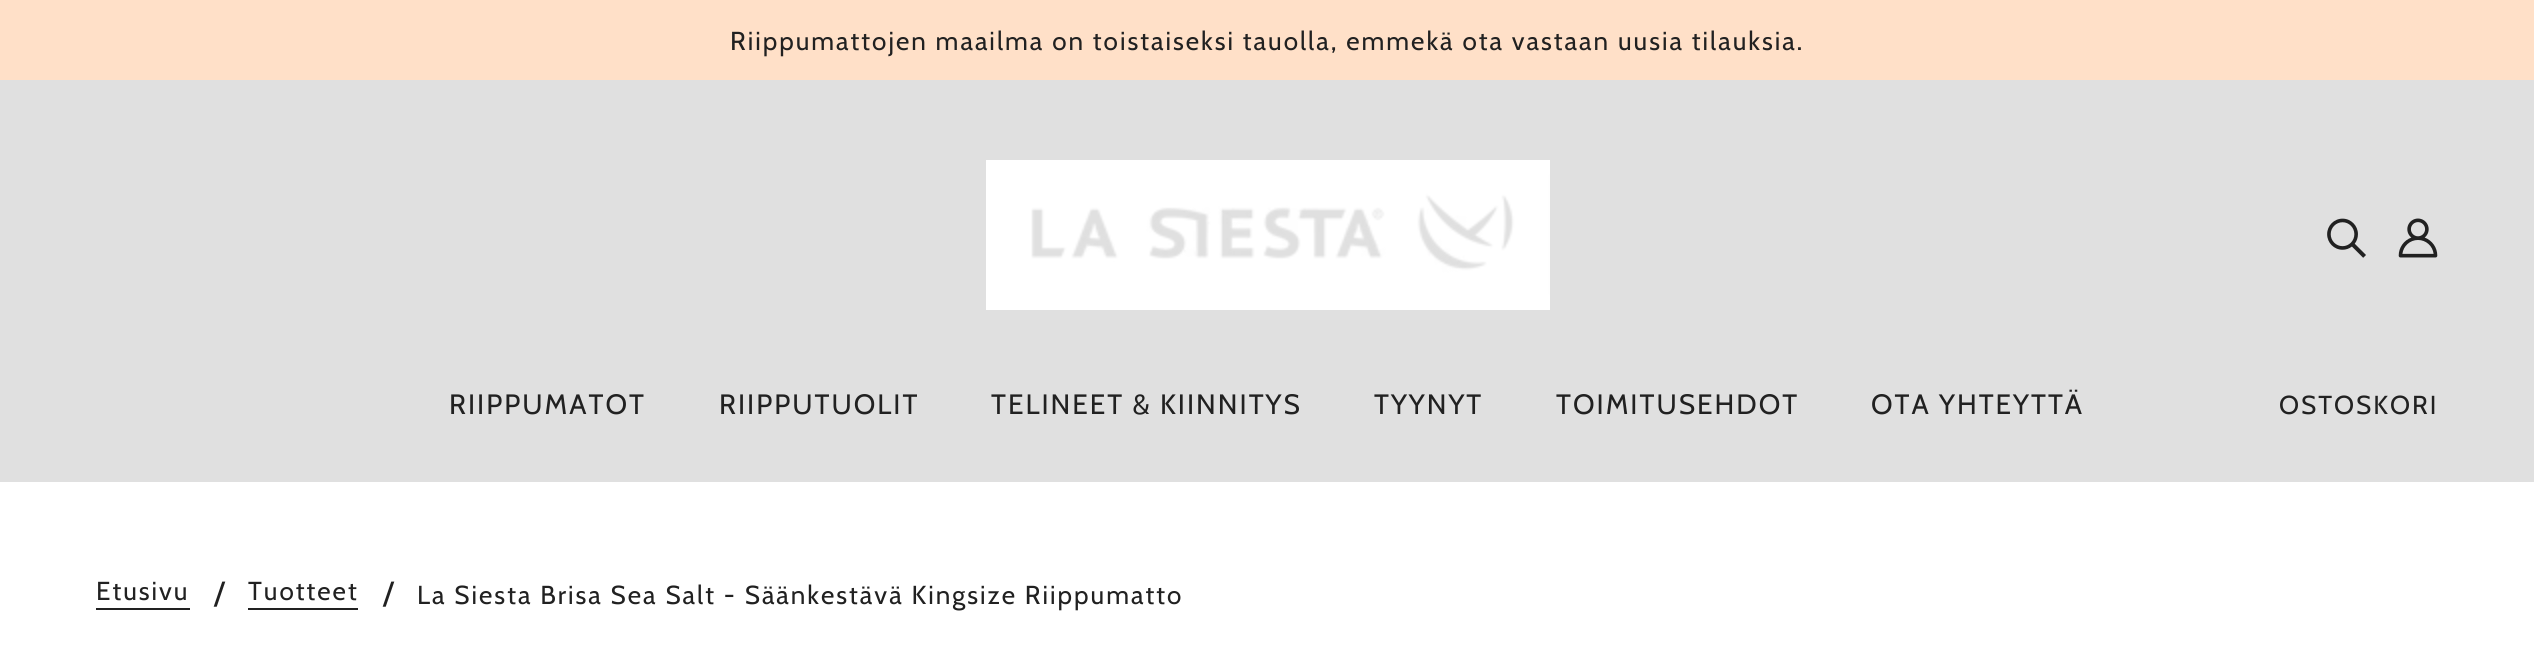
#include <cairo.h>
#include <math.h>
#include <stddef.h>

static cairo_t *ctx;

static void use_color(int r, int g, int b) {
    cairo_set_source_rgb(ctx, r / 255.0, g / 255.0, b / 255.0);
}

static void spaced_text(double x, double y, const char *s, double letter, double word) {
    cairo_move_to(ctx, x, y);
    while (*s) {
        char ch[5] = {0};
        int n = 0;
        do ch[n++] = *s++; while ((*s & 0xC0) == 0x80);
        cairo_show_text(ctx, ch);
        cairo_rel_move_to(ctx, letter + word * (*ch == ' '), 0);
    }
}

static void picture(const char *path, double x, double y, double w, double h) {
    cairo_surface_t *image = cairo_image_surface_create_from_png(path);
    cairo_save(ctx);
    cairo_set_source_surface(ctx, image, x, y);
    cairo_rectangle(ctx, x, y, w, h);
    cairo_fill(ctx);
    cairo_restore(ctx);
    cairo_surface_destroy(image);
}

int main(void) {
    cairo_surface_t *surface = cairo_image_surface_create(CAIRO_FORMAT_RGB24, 2534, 651);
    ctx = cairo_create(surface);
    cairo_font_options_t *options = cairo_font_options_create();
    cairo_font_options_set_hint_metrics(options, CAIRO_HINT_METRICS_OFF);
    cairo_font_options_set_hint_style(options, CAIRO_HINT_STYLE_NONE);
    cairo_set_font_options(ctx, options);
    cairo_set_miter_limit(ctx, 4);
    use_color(255, 255, 255);
    cairo_paint(ctx);
    use_color(255, 224, 200);
    cairo_rectangle(ctx, 0, 0, 2534, 80);
    cairo_fill(ctx);
    cairo_select_font_face(ctx, "Cabin", CAIRO_FONT_SLANT_NORMAL, CAIRO_FONT_WEIGHT_NORMAL);
    cairo_set_font_size(ctx, 26);
    use_color(33, 33, 33);
    spaced_text(730, 50, "Riippumattojen maailma on toistaiseksi tauolla, emmekä ota vastaan uusia tilauksia.", 2, 0);
    use_color(224, 224, 224);
    cairo_rectangle(ctx, 0, 80, 2534, 402);
    cairo_fill(ctx);
    picture("img1.png", 986, 160, 564, 150);
    picture("img2.png", 2327, 218, 39, 40);
    picture("img3.png", 2398, 218, 40, 40);
    cairo_set_font_size(ctx, 28);
    use_color(33, 33, 33);
    spaced_text(449, 414, "RIIPPUMATOT", 2, 0);
    spaced_text(719, 414, "RIIPPUTUOLIT", 2, 0);
    spaced_text(991, 414, "TELINEET & KIINNITYS", 2, 0);
    spaced_text(1374, 414, "TYYNYT", 2, 0);
    spaced_text(1556, 414, "TOIMITUSEHDOT", 2, 0);
    spaced_text(1871, 414, "OTA YHTEYTTÄ", 2, 0);
    cairo_set_font_size(ctx, 26);
    spaced_text(2279, 414, "OSTOSKORI", 2, 0);
    spaced_text(96, 600, "Etusivu", 2, 0);
    cairo_rectangle(ctx, 96, 608, 94, 2);
    cairo_fill(ctx);
    cairo_set_font_size(ctx, 32);
    cairo_move_to(ctx, 214, 604);
    cairo_show_text(ctx, "/");
    cairo_set_font_size(ctx, 26);
    spaced_text(248, 600, "Tuotteet", 2, 0);
    cairo_rectangle(ctx, 248, 608, 110, 2);
    cairo_fill(ctx);
    cairo_set_font_size(ctx, 32);
    cairo_move_to(ctx, 383, 604);
    cairo_show_text(ctx, "/");
    cairo_set_font_size(ctx, 26);
    spaced_text(417, 604, "La Siesta Brisa Sea Salt - Säänkestävä Kingsize Riippumatto", 2, 0);
    cairo_surface_write_to_png(surface, "result.png");
    cairo_font_options_destroy(options);
    cairo_destroy(ctx);
    cairo_surface_destroy(surface);
    return 0;
}
